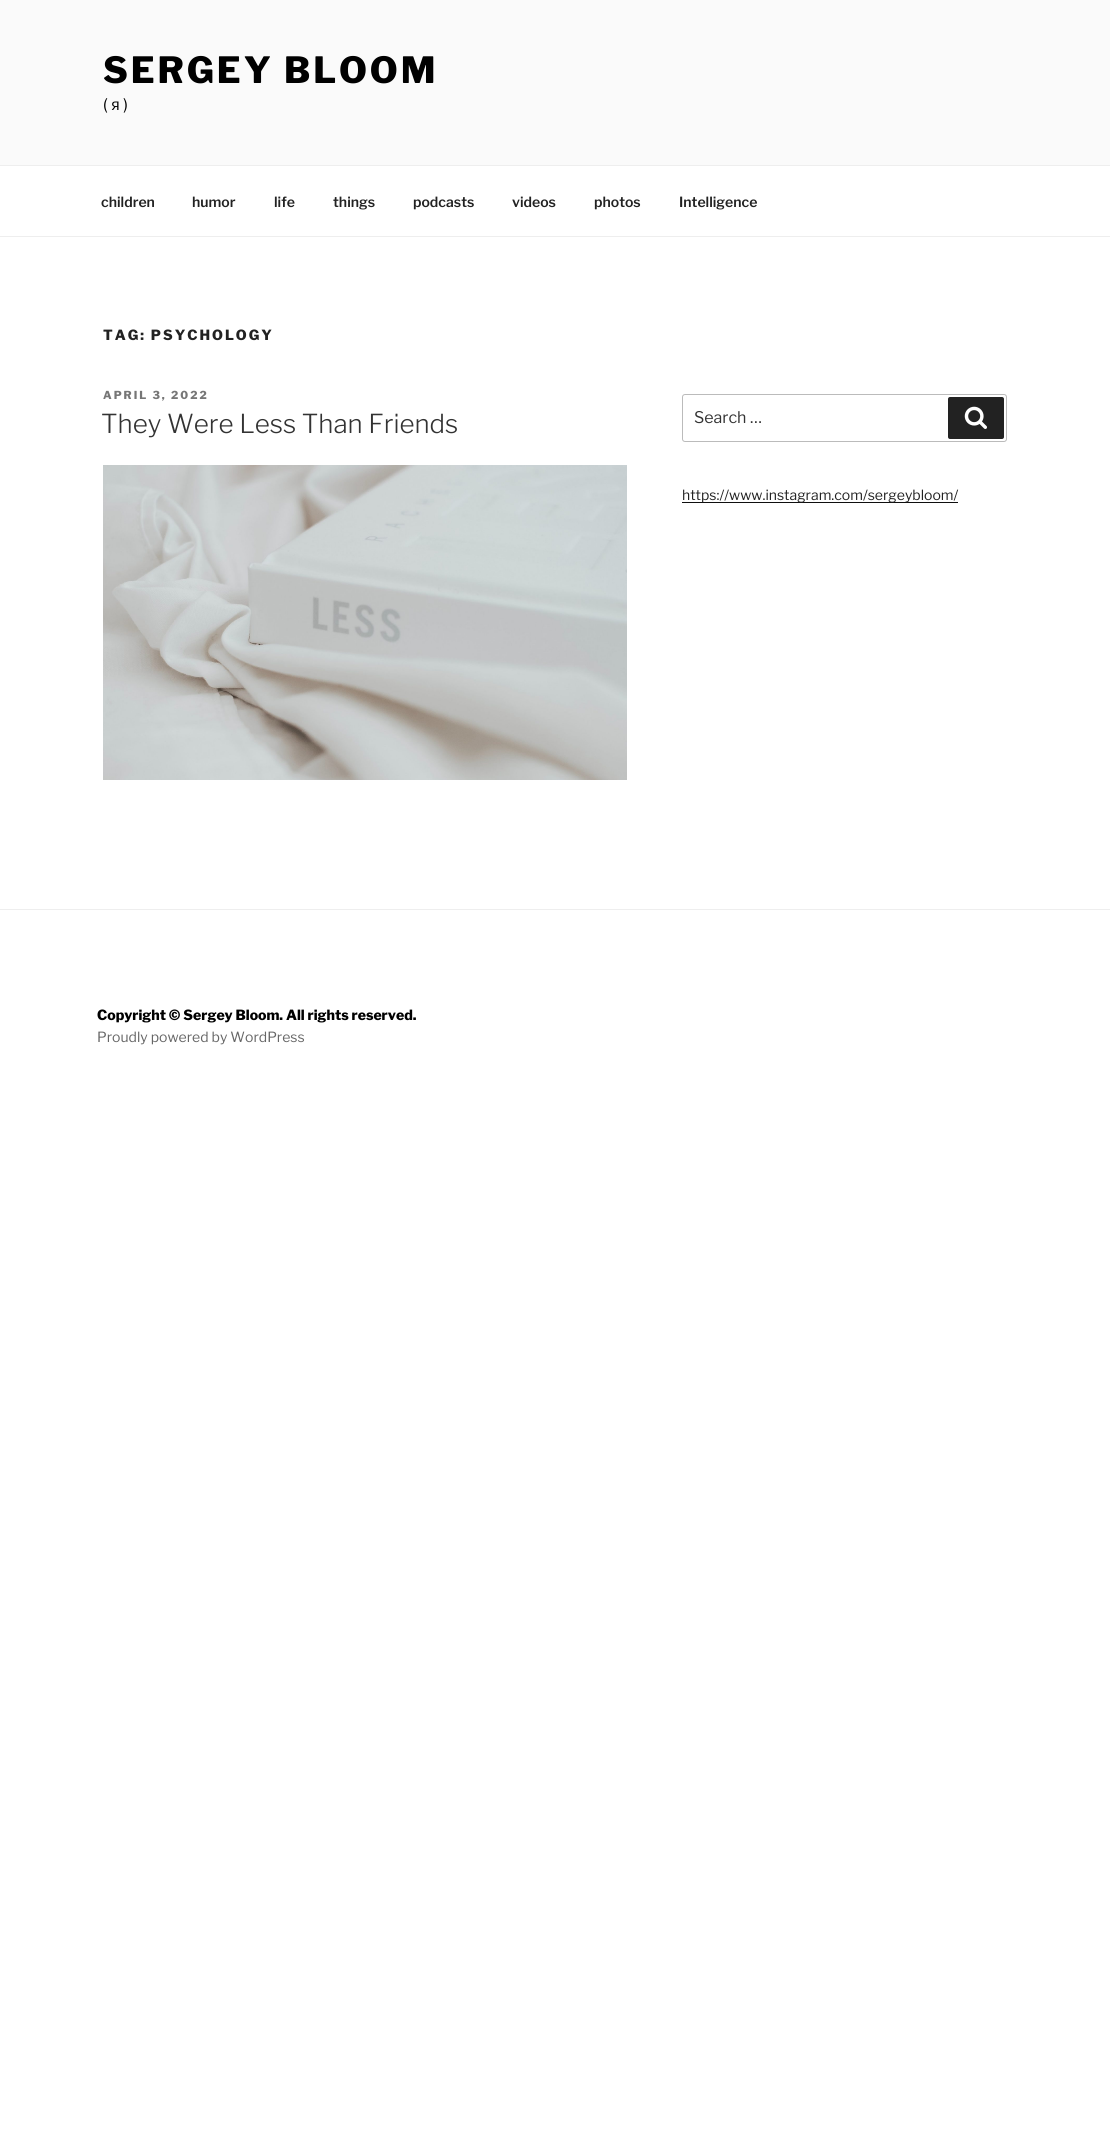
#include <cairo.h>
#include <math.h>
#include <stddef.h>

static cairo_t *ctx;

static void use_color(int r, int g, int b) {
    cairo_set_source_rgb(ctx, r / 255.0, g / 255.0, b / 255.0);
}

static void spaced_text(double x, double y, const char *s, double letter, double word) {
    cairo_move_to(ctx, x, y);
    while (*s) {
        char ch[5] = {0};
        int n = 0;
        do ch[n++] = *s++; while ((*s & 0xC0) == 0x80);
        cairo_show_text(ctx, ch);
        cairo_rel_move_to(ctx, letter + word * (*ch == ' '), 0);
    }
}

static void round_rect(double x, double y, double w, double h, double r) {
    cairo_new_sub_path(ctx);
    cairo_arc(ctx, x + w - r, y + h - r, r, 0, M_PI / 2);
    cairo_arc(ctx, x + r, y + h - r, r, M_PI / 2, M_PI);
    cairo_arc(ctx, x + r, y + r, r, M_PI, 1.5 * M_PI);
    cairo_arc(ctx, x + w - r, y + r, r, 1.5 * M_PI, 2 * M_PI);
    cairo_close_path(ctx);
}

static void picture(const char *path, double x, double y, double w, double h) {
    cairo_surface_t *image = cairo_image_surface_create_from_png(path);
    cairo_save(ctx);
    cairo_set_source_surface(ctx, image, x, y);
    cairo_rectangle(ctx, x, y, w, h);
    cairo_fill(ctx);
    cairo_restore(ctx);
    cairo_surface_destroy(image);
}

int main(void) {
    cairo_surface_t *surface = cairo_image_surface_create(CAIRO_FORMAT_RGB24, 1110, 2135);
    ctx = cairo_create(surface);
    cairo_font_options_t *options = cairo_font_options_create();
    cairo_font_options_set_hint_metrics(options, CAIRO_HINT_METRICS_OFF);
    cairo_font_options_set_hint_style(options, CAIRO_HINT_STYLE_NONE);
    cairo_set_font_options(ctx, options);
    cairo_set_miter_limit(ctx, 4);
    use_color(255, 255, 255);
    cairo_paint(ctx);
    use_color(250, 250, 250);
    cairo_rectangle(ctx, 0, 0, 1110, 165);
    cairo_fill(ctx);
    cairo_select_font_face(ctx, "Libre Franklin ExtraBold", CAIRO_FONT_SLANT_NORMAL, CAIRO_FONT_WEIGHT_NORMAL);
    cairo_set_font_size(ctx, 36);
    use_color(0, 0, 0);
    spaced_text(103, 83, "SERGEY BLOOM", 2.9, 0);
    cairo_select_font_face(ctx, "Libre Franklin", CAIRO_FONT_SLANT_NORMAL, CAIRO_FONT_WEIGHT_NORMAL);
    cairo_set_font_size(ctx, 16);
    cairo_move_to(ctx, 103, 110);
    cairo_show_text(ctx, "( я )");
    use_color(238, 238, 238);
    cairo_rectangle(ctx, 0, 165, 1110, 1);
    cairo_fill(ctx);
    cairo_rectangle(ctx, 0, 236, 1110, 1);
    cairo_fill(ctx);
    cairo_select_font_face(ctx, "Libre Franklin SemiBold", CAIRO_FONT_SLANT_NORMAL, CAIRO_FONT_WEIGHT_NORMAL);
    cairo_set_font_size(ctx, 14);
    use_color(34, 34, 34);
    cairo_move_to(ctx, 101, 207);
    cairo_show_text(ctx, "children");
    cairo_move_to(ctx, 192, 207);
    cairo_show_text(ctx, "humor");
    cairo_move_to(ctx, 274, 207);
    cairo_show_text(ctx, "life");
    cairo_move_to(ctx, 333, 207);
    cairo_show_text(ctx, "things");
    cairo_move_to(ctx, 413, 207);
    cairo_show_text(ctx, "podcasts");
    cairo_move_to(ctx, 512, 207);
    cairo_show_text(ctx, "videos");
    cairo_move_to(ctx, 594, 207);
    cairo_show_text(ctx, "photos");
    cairo_move_to(ctx, 679, 207);
    cairo_show_text(ctx, "Intelligence");
    cairo_select_font_face(ctx, "Libre Franklin ExtraBold", CAIRO_FONT_SLANT_NORMAL, CAIRO_FONT_WEIGHT_NORMAL);
    spaced_text(103, 340, "TAG: PSYCHOLOGY", 2, 0);
    cairo_set_font_size(ctx, 11);
    use_color(118, 118, 118);
    spaced_text(103, 399, "APRIL 3, 2022", 2, 0);
    cairo_select_font_face(ctx, "Libre Franklin Light", CAIRO_FONT_SLANT_NORMAL, CAIRO_FONT_WEIGHT_NORMAL);
    cairo_set_font_size(ctx, 26);
    use_color(51, 51, 51);
    cairo_move_to(ctx, 101, 433);
    cairo_show_text(ctx, "They Were Less Than Friends");
    picture("img1.png", 103, 465, 524, 315);
    round_rect(682.5, 394.5, 324, 47, 2.5);
    use_color(187, 187, 187);
    cairo_set_line_width(ctx, 1);
    cairo_stroke(ctx);
    cairo_select_font_face(ctx, "Libre Franklin", CAIRO_FONT_SLANT_NORMAL, CAIRO_FONT_WEIGHT_NORMAL);
    cairo_set_font_size(ctx, 16);
    use_color(51, 51, 51);
    cairo_move_to(ctx, 694, 423);
    cairo_show_text(ctx, "Search …");
    use_color(34, 34, 34);
    round_rect(948, 397, 56, 42, 2);
    cairo_fill(ctx);
    picture("img2.png", 964, 406, 23, 23);
    use_color(15, 15, 15);
    cairo_rectangle(ctx, 682, 502, 276, 1);
    cairo_fill(ctx);
    cairo_set_font_size(ctx, 14);
    use_color(34, 34, 34);
    cairo_move_to(ctx, 682, 500);
    cairo_show_text(ctx, "https://www.instagram.com/sergeybloom/");
    use_color(238, 238, 238);
    cairo_rectangle(ctx, 0, 909, 1110, 1);
    cairo_fill(ctx);
    cairo_select_font_face(ctx, "Libre Franklin ExtraBold", CAIRO_FONT_SLANT_NORMAL, CAIRO_FONT_WEIGHT_NORMAL);
    use_color(0, 0, 0);
    cairo_move_to(ctx, 97, 1020);
    cairo_show_text(ctx, "Copyright © Sergey Bloom. All rights reserved.");
    cairo_select_font_face(ctx, "Libre Franklin", CAIRO_FONT_SLANT_NORMAL, CAIRO_FONT_WEIGHT_NORMAL);
    use_color(102, 102, 102);
    cairo_move_to(ctx, 97, 1042);
    cairo_show_text(ctx, "Proudly powered by WordPress");
    cairo_surface_write_to_png(surface, "result.png");
    cairo_font_options_destroy(options);
    cairo_destroy(ctx);
    cairo_surface_destroy(surface);
    return 0;
}
